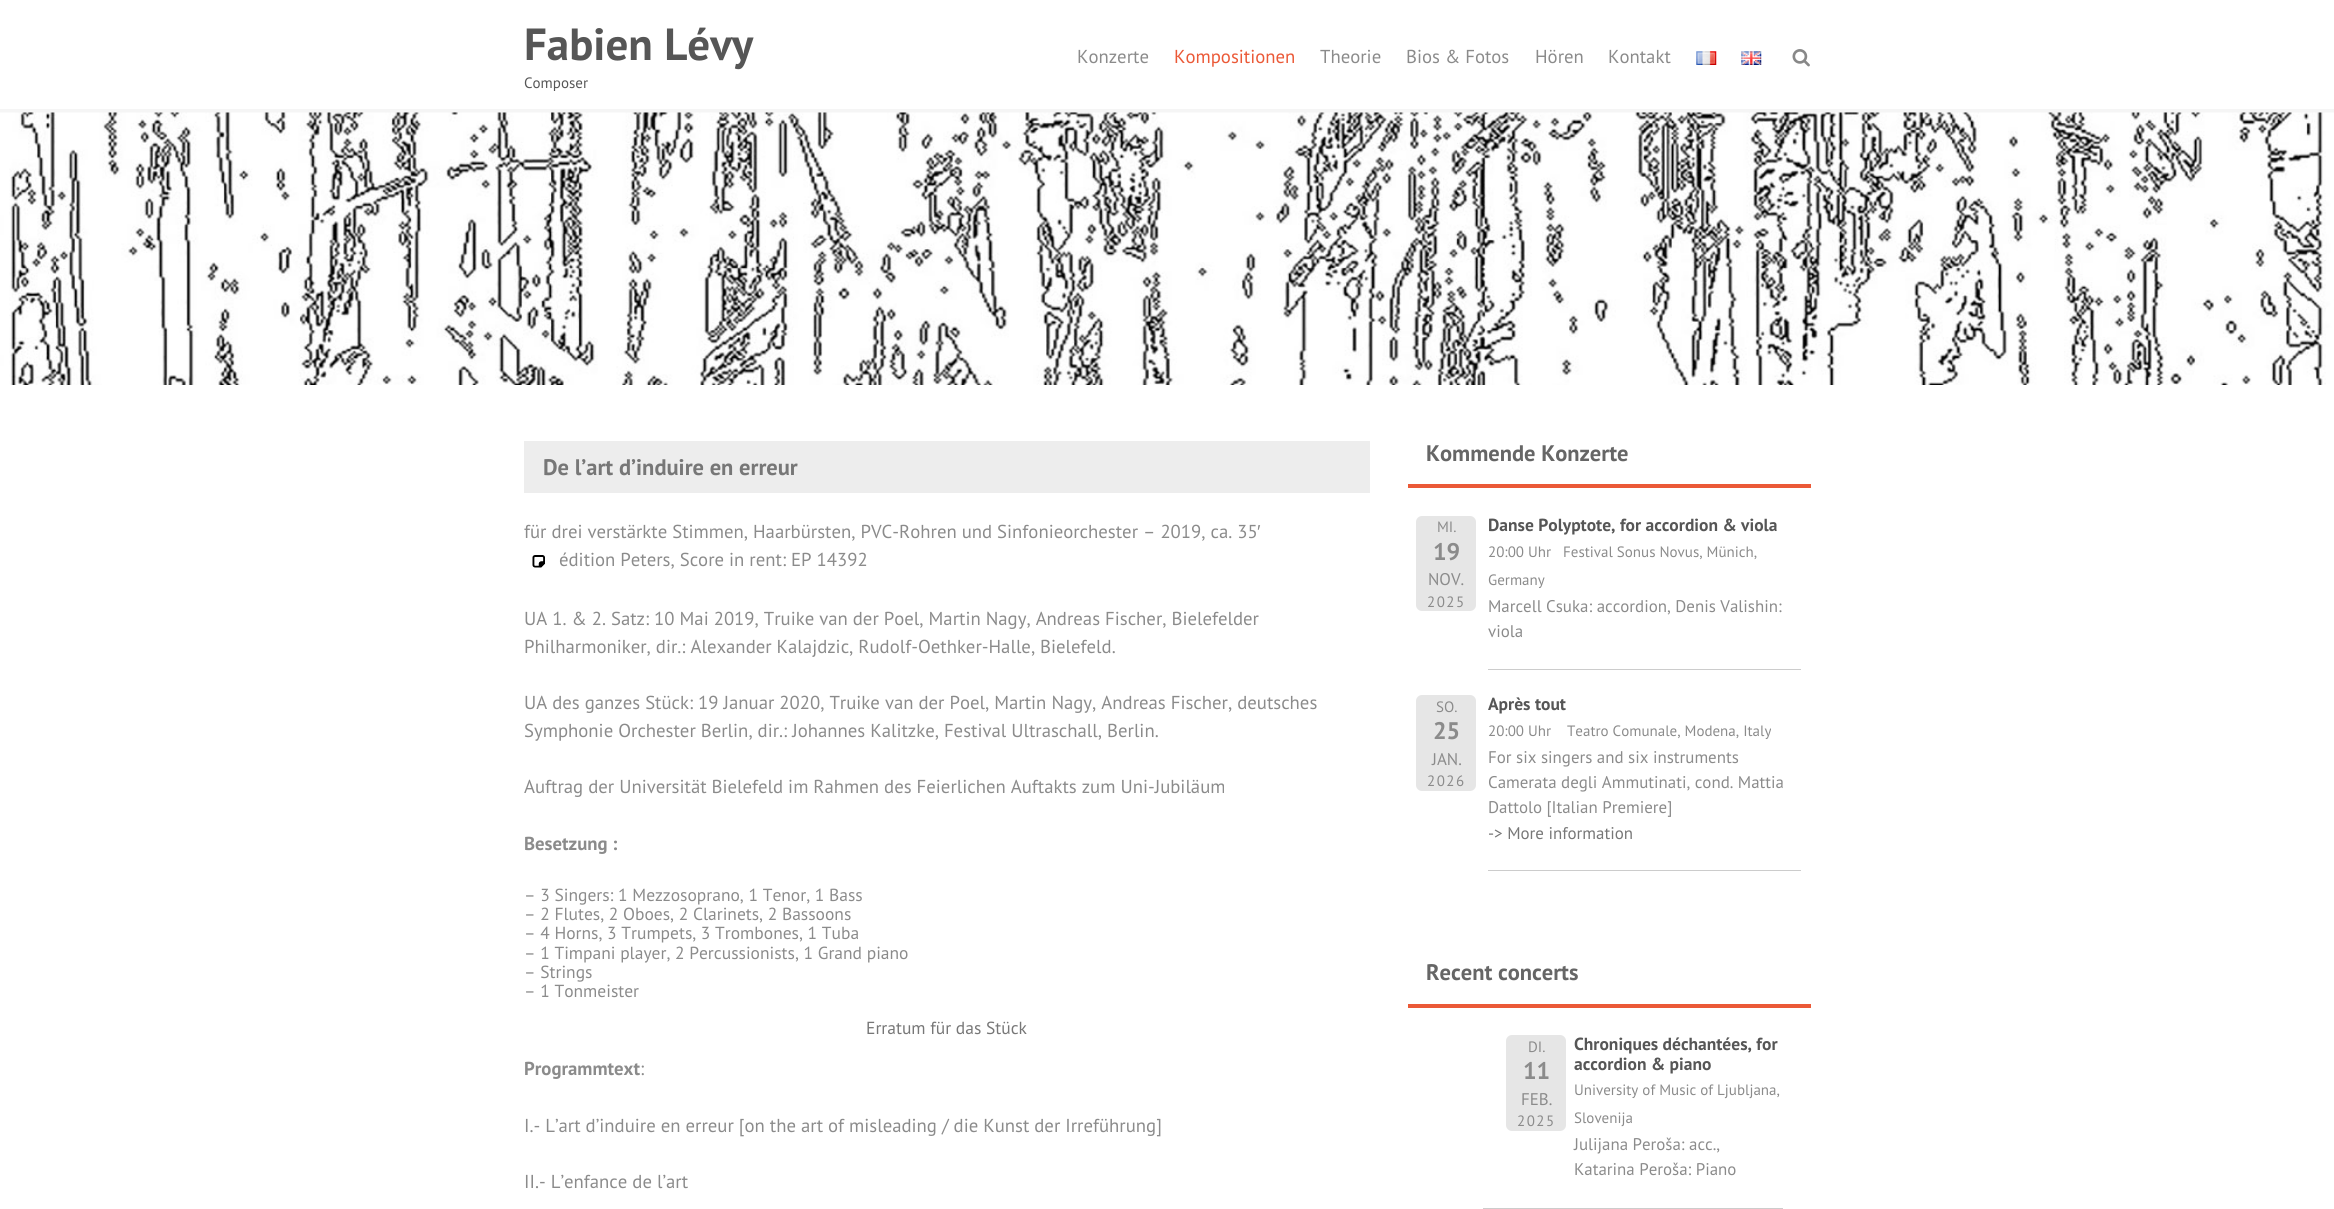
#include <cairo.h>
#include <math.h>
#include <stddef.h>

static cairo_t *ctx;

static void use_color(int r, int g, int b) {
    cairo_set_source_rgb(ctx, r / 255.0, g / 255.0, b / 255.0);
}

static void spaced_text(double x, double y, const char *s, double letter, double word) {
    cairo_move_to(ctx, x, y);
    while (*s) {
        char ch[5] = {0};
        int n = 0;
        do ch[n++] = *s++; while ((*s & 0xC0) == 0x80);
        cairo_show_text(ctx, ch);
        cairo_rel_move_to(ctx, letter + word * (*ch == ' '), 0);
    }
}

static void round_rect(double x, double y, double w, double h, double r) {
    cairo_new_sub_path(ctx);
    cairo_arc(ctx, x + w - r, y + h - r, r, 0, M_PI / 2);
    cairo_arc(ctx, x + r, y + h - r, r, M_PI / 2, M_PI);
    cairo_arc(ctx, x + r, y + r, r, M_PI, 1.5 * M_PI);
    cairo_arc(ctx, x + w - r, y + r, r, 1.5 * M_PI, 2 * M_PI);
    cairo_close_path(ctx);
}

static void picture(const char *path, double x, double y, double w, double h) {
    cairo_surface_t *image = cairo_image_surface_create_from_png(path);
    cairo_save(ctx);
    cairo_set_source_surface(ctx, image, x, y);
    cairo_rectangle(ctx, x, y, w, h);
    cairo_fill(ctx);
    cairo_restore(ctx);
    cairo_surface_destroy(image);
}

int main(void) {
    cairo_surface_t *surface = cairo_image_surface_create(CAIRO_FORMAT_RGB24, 2334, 1209);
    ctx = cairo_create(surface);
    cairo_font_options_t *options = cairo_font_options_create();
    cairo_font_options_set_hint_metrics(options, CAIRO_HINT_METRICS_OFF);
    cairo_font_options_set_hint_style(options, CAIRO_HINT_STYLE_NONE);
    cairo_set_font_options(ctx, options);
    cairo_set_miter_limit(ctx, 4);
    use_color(255, 255, 255);
    cairo_paint(ctx);
    use_color(245, 245, 245);
    cairo_rectangle(ctx, 0, 109, 2334, 4);
    cairo_fill(ctx);
    cairo_select_font_face(ctx, "PT Sans", CAIRO_FONT_SLANT_NORMAL, CAIRO_FONT_WEIGHT_BOLD);
    cairo_set_font_size(ctx, 45);
    use_color(86, 86, 86);
    cairo_move_to(ctx, 524, 60);
    cairo_show_text(ctx, "Fabien Lévy");
    cairo_select_font_face(ctx, "PT Sans", CAIRO_FONT_SLANT_NORMAL, CAIRO_FONT_WEIGHT_NORMAL);
    cairo_set_font_size(ctx, 15);
    cairo_move_to(ctx, 524, 88);
    cairo_show_text(ctx, "Composer");
    cairo_set_font_size(ctx, 18.75);
    use_color(139, 139, 139);
    cairo_move_to(ctx, 1077, 63);
    cairo_show_text(ctx, "Konzerte");
    use_color(235, 89, 55);
    cairo_move_to(ctx, 1174, 63);
    cairo_show_text(ctx, "Kompositionen");
    use_color(139, 139, 139);
    cairo_move_to(ctx, 1320, 63);
    cairo_show_text(ctx, "Theorie");
    cairo_move_to(ctx, 1406, 63);
    cairo_show_text(ctx, "Bios & Fotos");
    cairo_move_to(ctx, 1535, 63);
    cairo_show_text(ctx, "Hören");
    cairo_move_to(ctx, 1608, 63);
    cairo_show_text(ctx, "Kontakt");
    picture("img1.png", 1696, 51, 21, 14);
    picture("img2.png", 1741, 51, 21, 14);
    picture("img3.png", 1792, 49, 18, 18);
    picture("img4.png", 0, 112, 2334, 273);
    use_color(237, 237, 237);
    cairo_rectangle(ctx, 524, 441, 846, 52);
    cairo_fill(ctx);
    cairo_select_font_face(ctx, "PT Sans", CAIRO_FONT_SLANT_NORMAL, CAIRO_FONT_WEIGHT_BOLD);
    cairo_set_font_size(ctx, 22.5);
    use_color(119, 119, 119);
    cairo_move_to(ctx, 543, 475);
    cairo_show_text(ctx, "De l’art d’induire en erreur");
    cairo_select_font_face(ctx, "PT Sans", CAIRO_FONT_SLANT_NORMAL, CAIRO_FONT_WEIGHT_NORMAL);
    cairo_set_font_size(ctx, 18.75);
    use_color(139, 139, 139);
    cairo_move_to(ctx, 524, 538);
    cairo_show_text(ctx, "für drei verstärkte Stimmen, Haarbürsten, PVC-Rohren und Sinfonieorchester – 2019, ca. 35");
    cairo_select_font_face(ctx, "Liberation Sans", CAIRO_FONT_SLANT_NORMAL, CAIRO_FONT_WEIGHT_NORMAL);
    cairo_move_to(ctx, 1257, 538);
    cairo_show_text(ctx, "′");
    picture("img5.png", 532, 555, 13, 13);
    cairo_select_font_face(ctx, "PT Sans", CAIRO_FONT_SLANT_NORMAL, CAIRO_FONT_WEIGHT_NORMAL);
    cairo_move_to(ctx, 559, 566);
    cairo_show_text(ctx, "édition Peters, Score in rent: EP 14392");
    cairo_move_to(ctx, 524, 625);
    cairo_show_text(ctx, "UA 1. & 2. Satz: 10 Mai 2019, Truike van der Poel, Martin Nagy, Andreas Fischer, Bielefelder");
    cairo_move_to(ctx, 524, 653);
    cairo_show_text(ctx, "Philharmoniker, dir.: Alexander Kalajdzic, Rudolf-Oethker-Halle, Bielefeld.");
    cairo_move_to(ctx, 524, 709);
    cairo_show_text(ctx, "UA des ganzes Stück: 19 Januar 2020, Truike van der Poel, Martin Nagy, Andreas Fischer, deutsches");
    cairo_move_to(ctx, 524, 737);
    cairo_show_text(ctx, "Symphonie Orchester Berlin, dir.: Johannes Kalitzke, Festival Ultraschall, Berlin.");
    cairo_move_to(ctx, 524, 793);
    cairo_show_text(ctx, "Auftrag der Universität Bielefeld im Rahmen des Feierlichen Auftakts zum Uni-Jubiläum");
    cairo_select_font_face(ctx, "PT Sans", CAIRO_FONT_SLANT_NORMAL, CAIRO_FONT_WEIGHT_BOLD);
    cairo_move_to(ctx, 524, 850);
    cairo_show_text(ctx, "Besetzung :");
    cairo_select_font_face(ctx, "PT Sans", CAIRO_FONT_SLANT_NORMAL, CAIRO_FONT_WEIGHT_NORMAL);
    cairo_set_font_size(ctx, 17.5);
    cairo_move_to(ctx, 524, 901);
    cairo_show_text(ctx, "– 3 Singers: 1 Mezzosoprano, 1 Tenor, 1 Bass");
    cairo_move_to(ctx, 524, 920);
    cairo_show_text(ctx, "– 2 Flutes, 2 Oboes, 2 Clarinets, 2 Bassoons");
    cairo_move_to(ctx, 524, 939);
    cairo_show_text(ctx, "– 4 Horns, 3 Trumpets, 3 Trombones, 1 Tuba");
    cairo_move_to(ctx, 524, 959);
    cairo_show_text(ctx, "– 1 Timpani player, 2 Percussionists, 1 Grand piano");
    cairo_move_to(ctx, 524, 978);
    cairo_show_text(ctx, "– Strings");
    cairo_move_to(ctx, 524, 997);
    cairo_show_text(ctx, "– 1 Tonmeister");
    use_color(119, 119, 119);
    cairo_move_to(ctx, 866, 1034);
    cairo_show_text(ctx, "Erratum für das Stück");
    cairo_select_font_face(ctx, "PT Sans", CAIRO_FONT_SLANT_NORMAL, CAIRO_FONT_WEIGHT_BOLD);
    cairo_set_font_size(ctx, 18.75);
    use_color(139, 139, 139);
    cairo_move_to(ctx, 524, 1075);
    cairo_show_text(ctx, "Programmtext");
    cairo_select_font_face(ctx, "PT Sans", CAIRO_FONT_SLANT_NORMAL, CAIRO_FONT_WEIGHT_NORMAL);
    cairo_move_to(ctx, 640, 1075);
    cairo_show_text(ctx, ":");
    cairo_move_to(ctx, 524, 1132);
    cairo_show_text(ctx, "I.- L’art d’induire en erreur [on the art of misleading / die Kunst der Irreführung]");
    cairo_move_to(ctx, 524, 1188);
    cairo_show_text(ctx, "II.- L’enfance de l’art");
    use_color(235, 89, 55);
    cairo_rectangle(ctx, 1408, 484, 403, 4);
    cairo_fill(ctx);
    cairo_select_font_face(ctx, "PT Sans", CAIRO_FONT_SLANT_NORMAL, CAIRO_FONT_WEIGHT_BOLD);
    cairo_set_font_size(ctx, 22.5);
    use_color(102, 102, 102);
    cairo_move_to(ctx, 1426, 461);
    cairo_show_text(ctx, "Kommende Konzerte");
    use_color(230, 230, 230);
    round_rect(1416, 516, 60, 95, 6);
    cairo_fill(ctx);
    cairo_select_font_face(ctx, "PT Sans", CAIRO_FONT_SLANT_NORMAL, CAIRO_FONT_WEIGHT_NORMAL);
    cairo_set_font_size(ctx, 15);
    use_color(139, 139, 139);
    cairo_move_to(ctx, 1437, 532);
    cairo_show_text(ctx, "MI.");
    cairo_select_font_face(ctx, "PT Sans", CAIRO_FONT_SLANT_NORMAL, CAIRO_FONT_WEIGHT_BOLD);
    cairo_set_font_size(ctx, 24);
    cairo_move_to(ctx, 1433, 560);
    cairo_show_text(ctx, "19");
    cairo_select_font_face(ctx, "PT Sans", CAIRO_FONT_SLANT_NORMAL, CAIRO_FONT_WEIGHT_NORMAL);
    cairo_set_font_size(ctx, 16.9);
    cairo_move_to(ctx, 1428, 585);
    cairo_show_text(ctx, "NOV.");
    cairo_set_font_size(ctx, 15);
    spaced_text(1427, 607, "2025", 1.5, 0);
    cairo_select_font_face(ctx, "PT Sans", CAIRO_FONT_SLANT_NORMAL, CAIRO_FONT_WEIGHT_BOLD);
    cairo_set_font_size(ctx, 17.5);
    use_color(86, 86, 86);
    cairo_move_to(ctx, 1488, 531);
    cairo_show_text(ctx, "Danse Polyptote, for accordion & viola");
    cairo_select_font_face(ctx, "PT Sans", CAIRO_FONT_SLANT_NORMAL, CAIRO_FONT_WEIGHT_NORMAL);
    cairo_set_font_size(ctx, 15);
    use_color(139, 139, 139);
    cairo_move_to(ctx, 1488, 557);
    cairo_show_text(ctx, "20:00 Uhr");
    cairo_move_to(ctx, 1563, 557);
    cairo_show_text(ctx, "Festival Sonus Novus, Münich,");
    cairo_move_to(ctx, 1488, 585);
    cairo_show_text(ctx, "Germany");
    cairo_set_font_size(ctx, 16.9);
    cairo_move_to(ctx, 1488, 612);
    cairo_show_text(ctx, "Marcell Csuka: accordion, Denis Valishin:");
    cairo_move_to(ctx, 1488, 637);
    cairo_show_text(ctx, "viola");
    use_color(204, 204, 204);
    cairo_rectangle(ctx, 1488, 669, 313, 1);
    cairo_fill(ctx);
    use_color(230, 230, 230);
    round_rect(1416, 695, 60, 96, 6);
    cairo_fill(ctx);
    cairo_set_font_size(ctx, 15);
    use_color(139, 139, 139);
    cairo_move_to(ctx, 1436, 712);
    cairo_show_text(ctx, "SO.");
    cairo_select_font_face(ctx, "PT Sans", CAIRO_FONT_SLANT_NORMAL, CAIRO_FONT_WEIGHT_BOLD);
    cairo_set_font_size(ctx, 24);
    cairo_move_to(ctx, 1433, 739);
    cairo_show_text(ctx, "25");
    cairo_select_font_face(ctx, "PT Sans", CAIRO_FONT_SLANT_NORMAL, CAIRO_FONT_WEIGHT_NORMAL);
    cairo_set_font_size(ctx, 16.9);
    cairo_move_to(ctx, 1432, 765);
    cairo_show_text(ctx, "JAN.");
    cairo_set_font_size(ctx, 15);
    spaced_text(1427, 786, "2026", 1.5, 0);
    cairo_select_font_face(ctx, "PT Sans", CAIRO_FONT_SLANT_NORMAL, CAIRO_FONT_WEIGHT_BOLD);
    cairo_set_font_size(ctx, 17.5);
    use_color(86, 86, 86);
    cairo_move_to(ctx, 1488, 710);
    cairo_show_text(ctx, "Après tout");
    cairo_select_font_face(ctx, "PT Sans", CAIRO_FONT_SLANT_NORMAL, CAIRO_FONT_WEIGHT_NORMAL);
    cairo_set_font_size(ctx, 15);
    use_color(139, 139, 139);
    cairo_move_to(ctx, 1488, 736);
    cairo_show_text(ctx, "20:00 Uhr");
    cairo_move_to(ctx, 1567, 736);
    cairo_show_text(ctx, "Teatro Comunale, Modena, Italy");
    cairo_set_font_size(ctx, 16.9);
    cairo_move_to(ctx, 1488, 763);
    cairo_show_text(ctx, "For six singers and six instruments");
    cairo_move_to(ctx, 1488, 788);
    cairo_show_text(ctx, "Camerata degli Ammutinati, cond. Mattia");
    cairo_move_to(ctx, 1488, 813);
    cairo_show_text(ctx, "Dattolo [Italian Premiere]");
    use_color(119, 119, 119);
    cairo_move_to(ctx, 1488, 839);
    cairo_show_text(ctx, "-> More information");
    use_color(204, 204, 204);
    cairo_rectangle(ctx, 1488, 870, 313, 1);
    cairo_fill(ctx);
    use_color(235, 89, 55);
    cairo_rectangle(ctx, 1408, 1004, 403, 4);
    cairo_fill(ctx);
    cairo_select_font_face(ctx, "PT Sans", CAIRO_FONT_SLANT_NORMAL, CAIRO_FONT_WEIGHT_BOLD);
    cairo_set_font_size(ctx, 22.5);
    use_color(102, 102, 102);
    cairo_move_to(ctx, 1426, 980);
    cairo_show_text(ctx, "Recent concerts");
    use_color(230, 230, 230);
    round_rect(1506, 1035, 60, 96, 6);
    cairo_fill(ctx);
    cairo_select_font_face(ctx, "PT Sans", CAIRO_FONT_SLANT_NORMAL, CAIRO_FONT_WEIGHT_NORMAL);
    cairo_set_font_size(ctx, 15);
    use_color(139, 139, 139);
    cairo_move_to(ctx, 1528, 1052);
    cairo_show_text(ctx, "DI.");
    cairo_select_font_face(ctx, "PT Sans", CAIRO_FONT_SLANT_NORMAL, CAIRO_FONT_WEIGHT_BOLD);
    cairo_set_font_size(ctx, 24);
    cairo_move_to(ctx, 1523, 1079);
    cairo_show_text(ctx, "11");
    cairo_select_font_face(ctx, "PT Sans", CAIRO_FONT_SLANT_NORMAL, CAIRO_FONT_WEIGHT_NORMAL);
    cairo_set_font_size(ctx, 16.9);
    cairo_move_to(ctx, 1521, 1105);
    cairo_show_text(ctx, "FEB.");
    cairo_set_font_size(ctx, 15);
    spaced_text(1517, 1126, "2025", 1.5, 0);
    cairo_select_font_face(ctx, "PT Sans", CAIRO_FONT_SLANT_NORMAL, CAIRO_FONT_WEIGHT_BOLD);
    cairo_set_font_size(ctx, 17.5);
    use_color(86, 86, 86);
    cairo_move_to(ctx, 1574, 1050);
    cairo_show_text(ctx, "Chroniques déchantées, for");
    cairo_move_to(ctx, 1574, 1070);
    cairo_show_text(ctx, "accordion & piano");
    cairo_select_font_face(ctx, "PT Sans", CAIRO_FONT_SLANT_NORMAL, CAIRO_FONT_WEIGHT_NORMAL);
    cairo_set_font_size(ctx, 15);
    use_color(139, 139, 139);
    cairo_move_to(ctx, 1574, 1095);
    cairo_show_text(ctx, "University of Music of Ljubljana,");
    cairo_move_to(ctx, 1574, 1123);
    cairo_show_text(ctx, "Slovenija");
    cairo_set_font_size(ctx, 16.9);
    cairo_move_to(ctx, 1574, 1150);
    cairo_show_text(ctx, "Julijana Peroša: acc.,");
    cairo_move_to(ctx, 1574, 1175);
    cairo_show_text(ctx, "Katarina Peroša: Piano");
    use_color(204, 204, 204);
    cairo_rectangle(ctx, 1483, 1208, 300, 1);
    cairo_fill(ctx);
    cairo_surface_write_to_png(surface, "result.png");
    cairo_font_options_destroy(options);
    cairo_destroy(ctx);
    cairo_surface_destroy(surface);
    return 0;
}
